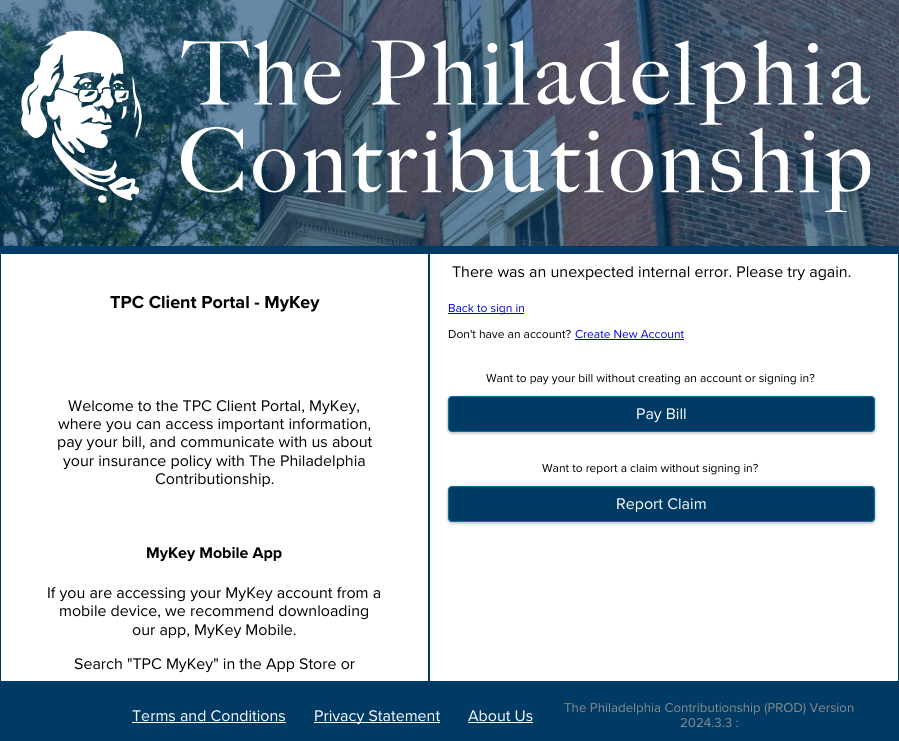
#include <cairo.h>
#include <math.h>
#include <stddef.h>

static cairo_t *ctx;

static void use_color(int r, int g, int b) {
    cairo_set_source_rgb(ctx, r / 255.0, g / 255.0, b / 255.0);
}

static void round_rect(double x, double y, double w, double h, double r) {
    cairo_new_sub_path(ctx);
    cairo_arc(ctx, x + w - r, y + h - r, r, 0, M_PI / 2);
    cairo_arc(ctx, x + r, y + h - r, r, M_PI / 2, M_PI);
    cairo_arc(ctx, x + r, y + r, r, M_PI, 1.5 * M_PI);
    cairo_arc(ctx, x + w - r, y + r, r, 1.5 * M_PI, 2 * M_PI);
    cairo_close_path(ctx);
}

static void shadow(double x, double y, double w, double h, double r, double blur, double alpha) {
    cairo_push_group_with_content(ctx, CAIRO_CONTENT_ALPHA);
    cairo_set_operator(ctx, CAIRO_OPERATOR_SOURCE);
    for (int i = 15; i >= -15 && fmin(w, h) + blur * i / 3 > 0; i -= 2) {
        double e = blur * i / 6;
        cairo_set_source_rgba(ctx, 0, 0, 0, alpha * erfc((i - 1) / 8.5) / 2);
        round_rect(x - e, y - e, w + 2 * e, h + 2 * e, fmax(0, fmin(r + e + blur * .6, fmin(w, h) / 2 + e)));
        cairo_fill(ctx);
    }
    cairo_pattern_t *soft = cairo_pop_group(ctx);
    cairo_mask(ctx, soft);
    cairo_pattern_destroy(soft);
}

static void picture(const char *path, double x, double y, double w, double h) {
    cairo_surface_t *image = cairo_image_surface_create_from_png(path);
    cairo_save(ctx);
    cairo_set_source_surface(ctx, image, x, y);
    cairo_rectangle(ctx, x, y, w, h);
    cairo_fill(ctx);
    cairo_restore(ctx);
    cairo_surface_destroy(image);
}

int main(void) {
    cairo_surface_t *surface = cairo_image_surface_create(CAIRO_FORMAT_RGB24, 899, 741);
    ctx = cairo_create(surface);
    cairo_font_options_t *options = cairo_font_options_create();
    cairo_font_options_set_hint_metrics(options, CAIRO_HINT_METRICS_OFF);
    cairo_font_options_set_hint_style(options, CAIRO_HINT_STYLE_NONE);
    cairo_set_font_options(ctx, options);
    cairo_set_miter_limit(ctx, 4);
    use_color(255, 255, 255);
    cairo_paint(ctx);
    picture("img1.png", 898, 0, 1, 246);
    picture("img2.png", 0, 0, 899, 246);
    picture("img3.png", 21, 30, 849, 182);
    use_color(0, 59, 102);
    cairo_rectangle(ctx, 0, 246, 899, 8);
    cairo_fill(ctx);
    cairo_rectangle(ctx, 428, 246, 2, 435);
    cairo_fill(ctx);
    cairo_rectangle(ctx, 0, 246, 1, 435);
    cairo_fill(ctx);
    cairo_select_font_face(ctx, "Proxima Nova", CAIRO_FONT_SLANT_NORMAL, CAIRO_FONT_WEIGHT_BOLD);
    cairo_set_font_size(ctx, 18);
    use_color(0, 0, 0);
    cairo_move_to(ctx, 110, 308);
    cairo_show_text(ctx, "TPC Client Portal - MyKey");
    cairo_select_font_face(ctx, "Proxima Nova", CAIRO_FONT_SLANT_NORMAL, CAIRO_FONT_WEIGHT_NORMAL);
    cairo_set_font_size(ctx, 16);
    cairo_move_to(ctx, 68, 411);
    cairo_show_text(ctx, "Welcome to the TPC Client Portal, MyKey,");
    cairo_move_to(ctx, 58, 429);
    cairo_show_text(ctx, "where you can access important information,");
    cairo_move_to(ctx, 57, 447);
    cairo_show_text(ctx, "pay your bill, and communicate with us about");
    cairo_move_to(ctx, 63, 466);
    cairo_show_text(ctx, "your insurance policy with The Philadelphia");
    cairo_move_to(ctx, 155, 484);
    cairo_show_text(ctx, "Contributionship.");
    cairo_select_font_face(ctx, "Proxima Nova", CAIRO_FONT_SLANT_NORMAL, CAIRO_FONT_WEIGHT_BOLD);
    cairo_move_to(ctx, 146, 558);
    cairo_show_text(ctx, "MyKey Mobile App");
    cairo_select_font_face(ctx, "Proxima Nova", CAIRO_FONT_SLANT_NORMAL, CAIRO_FONT_WEIGHT_NORMAL);
    cairo_move_to(ctx, 47, 598);
    cairo_show_text(ctx, "If you are accessing your MyKey account from a");
    cairo_move_to(ctx, 59, 616);
    cairo_show_text(ctx, "mobile device, we recommend downloading");
    cairo_move_to(ctx, 132, 635);
    cairo_show_text(ctx, "our app, MyKey Mobile.");
    cairo_move_to(ctx, 74, 669);
    cairo_show_text(ctx, "Search \"TPC MyKey\" in the App Store or");
    use_color(0, 59, 102);
    cairo_rectangle(ctx, 898, 246, 1, 435);
    cairo_fill(ctx);
    use_color(0, 0, 0);
    cairo_move_to(ctx, 452, 277);
    cairo_show_text(ctx, "There was an unexpected internal error. Please try again.");
    use_color(0, 0, 238);
    cairo_rectangle(ctx, 448, 313, 76, 1);
    cairo_fill(ctx);
    cairo_set_font_size(ctx, 12);
    cairo_move_to(ctx, 448, 312);
    cairo_show_text(ctx, "Back to sign in");
    use_color(0, 0, 0);
    cairo_move_to(ctx, 448, 338);
    cairo_show_text(ctx, "Don't have an account?");
    use_color(0, 0, 238);
    cairo_move_to(ctx, 575, 338);
    cairo_show_text(ctx, "Create New Account");
    cairo_rectangle(ctx, 575, 339, 109, 1);
    cairo_fill(ctx);
    use_color(0, 0, 0);
    cairo_move_to(ctx, 486, 382);
    cairo_show_text(ctx, "Want to pay your bill without creating an account or signing in?");
    use_color(40, 51, 63);
    shadow(447, 396, 429, 38, 5, 1, 0.24);
    use_color(0, 59, 102);
    round_rect(448.5, 396.5, 426, 35, 3.5);
    cairo_fill_preserve(ctx);
    use_color(0, 115, 157);
    cairo_set_line_width(ctx, 1);
    cairo_stroke(ctx);
    cairo_set_font_size(ctx, 16);
    use_color(255, 255, 255);
    cairo_move_to(ctx, 636, 419);
    cairo_show_text(ctx, "Pay Bill");
    cairo_set_font_size(ctx, 12);
    use_color(0, 0, 0);
    cairo_move_to(ctx, 542, 472);
    cairo_show_text(ctx, "Want to report a claim without signing in?");
    use_color(40, 51, 63);
    shadow(447, 486, 429, 38, 5, 1, 0.24);
    use_color(0, 59, 102);
    round_rect(448.5, 486.5, 426, 35, 3.5);
    cairo_fill_preserve(ctx);
    use_color(0, 115, 157);
    cairo_stroke(ctx);
    cairo_set_font_size(ctx, 16);
    use_color(255, 255, 255);
    cairo_move_to(ctx, 616, 509);
    cairo_show_text(ctx, "Report Claim");
    use_color(0, 59, 102);
    cairo_rectangle(ctx, 0, 681, 899, 60);
    cairo_fill(ctx);
    use_color(255, 255, 255);
    cairo_move_to(ctx, 132, 721);
    cairo_show_text(ctx, "Terms and Conditions");
    cairo_rectangle(ctx, 132, 722, 154, 1);
    cairo_fill(ctx);
    cairo_rectangle(ctx, 314, 722, 126, 1);
    cairo_fill(ctx);
    cairo_move_to(ctx, 314, 721);
    cairo_show_text(ctx, "Privacy Statement");
    cairo_move_to(ctx, 468, 721);
    cairo_show_text(ctx, "About Us");
    cairo_rectangle(ctx, 468, 722, 65, 1);
    cairo_fill(ctx);
    cairo_set_font_size(ctx, 13.3);
    use_color(138, 138, 138);
    cairo_move_to(ctx, 564, 712);
    cairo_show_text(ctx, "The Philadelphia Contributionship (PROD) Version");
    cairo_move_to(ctx, 680, 727);
    cairo_show_text(ctx, "2024.3.3 :");
    cairo_surface_write_to_png(surface, "result.png");
    cairo_font_options_destroy(options);
    cairo_destroy(ctx);
    cairo_surface_destroy(surface);
    return 0;
}
